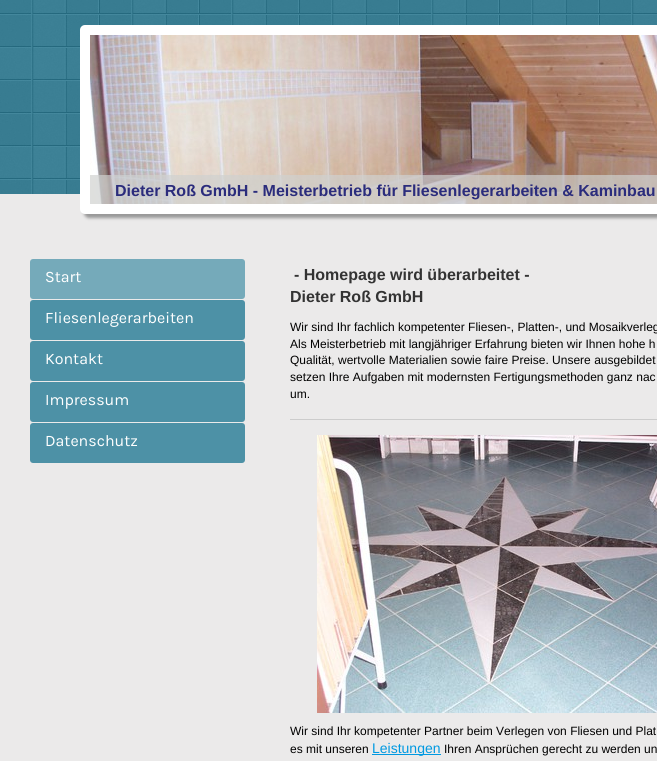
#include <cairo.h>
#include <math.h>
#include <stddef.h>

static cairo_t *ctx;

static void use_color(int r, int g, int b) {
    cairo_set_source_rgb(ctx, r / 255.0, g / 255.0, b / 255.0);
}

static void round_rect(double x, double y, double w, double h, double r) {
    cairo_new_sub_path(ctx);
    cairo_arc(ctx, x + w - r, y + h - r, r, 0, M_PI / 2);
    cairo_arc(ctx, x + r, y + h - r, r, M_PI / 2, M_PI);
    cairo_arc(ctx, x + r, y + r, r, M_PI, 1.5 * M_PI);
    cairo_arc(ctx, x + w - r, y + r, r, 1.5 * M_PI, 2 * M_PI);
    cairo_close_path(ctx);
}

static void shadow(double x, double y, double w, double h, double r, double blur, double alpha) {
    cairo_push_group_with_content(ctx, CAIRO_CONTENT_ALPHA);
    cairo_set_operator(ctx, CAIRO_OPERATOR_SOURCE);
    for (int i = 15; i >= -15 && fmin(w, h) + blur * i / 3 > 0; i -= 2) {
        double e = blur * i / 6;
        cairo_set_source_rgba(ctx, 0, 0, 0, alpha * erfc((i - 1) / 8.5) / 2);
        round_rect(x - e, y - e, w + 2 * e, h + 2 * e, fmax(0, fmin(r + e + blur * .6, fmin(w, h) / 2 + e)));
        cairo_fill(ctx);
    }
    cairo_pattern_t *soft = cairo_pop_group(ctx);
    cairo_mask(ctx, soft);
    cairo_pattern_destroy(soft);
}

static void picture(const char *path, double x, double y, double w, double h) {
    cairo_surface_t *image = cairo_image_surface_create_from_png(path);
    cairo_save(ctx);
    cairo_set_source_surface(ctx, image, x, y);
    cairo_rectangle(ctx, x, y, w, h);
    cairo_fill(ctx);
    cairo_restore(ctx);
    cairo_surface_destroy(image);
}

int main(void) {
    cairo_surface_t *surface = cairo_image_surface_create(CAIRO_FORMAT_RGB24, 657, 761);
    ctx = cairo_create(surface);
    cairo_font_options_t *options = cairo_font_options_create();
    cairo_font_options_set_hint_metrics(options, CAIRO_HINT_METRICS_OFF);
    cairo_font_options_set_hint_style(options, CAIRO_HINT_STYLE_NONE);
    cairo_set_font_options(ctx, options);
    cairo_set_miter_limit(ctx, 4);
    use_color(235, 234, 234);
    cairo_paint(ctx);
    picture("img1.png", 0, 0, 657, 194);
    use_color(70, 70, 70);
    shadow(84, 29, 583, 189, 5, 1.5, 0.5);
    use_color(255, 255, 255);
    round_rect(80, 25, 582, 189, 5);
    cairo_fill(ctx);
    picture("img2.png", 90, 35, 567, 169);
    cairo_set_source_rgba(ctx, 0.812, 0.816, 0.812, 0.69);
    cairo_rectangle(ctx, 90, 175, 567, 29);
    cairo_fill(ctx);
    cairo_select_font_face(ctx, "Liberation Sans", CAIRO_FONT_SLANT_NORMAL, CAIRO_FONT_WEIGHT_BOLD);
    cairo_set_font_size(ctx, 16);
    use_color(43, 44, 124);
    cairo_move_to(ctx, 115, 196);
    cairo_show_text(ctx, "Dieter Roß GmbH - Meisterbetrieb für Fliesenlegerarbeiten & Kaminbau");
    use_color(117, 170, 186);
    round_rect(30, 259, 215, 40, 3);
    cairo_fill(ctx);
    cairo_select_font_face(ctx, "Karla", CAIRO_FONT_SLANT_NORMAL, CAIRO_FONT_WEIGHT_NORMAL);
    use_color(255, 255, 255);
    cairo_move_to(ctx, 45, 282);
    cairo_show_text(ctx, "Start");
    use_color(77, 145, 166);
    round_rect(30, 300, 215, 40, 3);
    cairo_fill(ctx);
    use_color(255, 255, 255);
    cairo_move_to(ctx, 45, 323);
    cairo_show_text(ctx, "Fliesenlegerarbeiten");
    use_color(77, 145, 166);
    round_rect(30, 341, 215, 40, 3);
    cairo_fill(ctx);
    use_color(255, 255, 255);
    cairo_move_to(ctx, 45, 364);
    cairo_show_text(ctx, "Kontakt");
    use_color(77, 145, 166);
    round_rect(30, 382, 215, 40, 3);
    cairo_fill(ctx);
    use_color(255, 255, 255);
    cairo_move_to(ctx, 45, 405);
    cairo_show_text(ctx, "Impressum");
    use_color(77, 145, 166);
    round_rect(30, 423, 215, 40, 3);
    cairo_fill(ctx);
    use_color(255, 255, 255);
    cairo_move_to(ctx, 45, 446);
    cairo_show_text(ctx, "Datenschutz");
    cairo_select_font_face(ctx, "Liberation Sans", CAIRO_FONT_SLANT_NORMAL, CAIRO_FONT_WEIGHT_BOLD);
    use_color(51, 51, 51);
    cairo_move_to(ctx, 294, 280);
    cairo_show_text(ctx, "- Homepage wird überarbeitet -");
    cairo_move_to(ctx, 290, 302);
    cairo_show_text(ctx, "Dieter Roß GmbH");
    cairo_select_font_face(ctx, "Liberation Sans", CAIRO_FONT_SLANT_NORMAL, CAIRO_FONT_WEIGHT_NORMAL);
    cairo_set_font_size(ctx, 12);
    use_color(0, 0, 0);
    cairo_move_to(ctx, 290, 331);
    cairo_show_text(ctx, "Wir sind Ihr fachlich kompetenter Fliesen-, Platten-, und Mosaikverleg");
    cairo_move_to(ctx, 290, 348);
    cairo_show_text(ctx, "Als Meisterbetrieb mit langjähriger Erfahrung bieten wir Ihnen hohe h");
    cairo_move_to(ctx, 290, 364);
    cairo_show_text(ctx, "Qualität, wertvolle Materialien sowie faire Preise. Unsere ausgebildet");
    cairo_move_to(ctx, 290, 381);
    cairo_show_text(ctx, "setzen Ihre Aufgaben mit modernsten Fertigungsmethoden ganz nac");
    cairo_move_to(ctx, 290, 398);
    cairo_show_text(ctx, "um.");
    use_color(204, 204, 204);
    cairo_rectangle(ctx, 290, 419, 367, 1);
    cairo_fill(ctx);
    picture("img3.png", 317, 435, 340, 278);
    use_color(0, 0, 0);
    cairo_move_to(ctx, 290, 735);
    cairo_show_text(ctx, "Wir sind Ihr kompetenter Partner beim Verlegen von Fliesen und Plat");
    cairo_move_to(ctx, 290, 753);
    cairo_show_text(ctx, "es mit unseren");
    use_color(0, 153, 225);
    cairo_rectangle(ctx, 372, 754, 69, 1);
    cairo_fill(ctx);
    cairo_set_font_size(ctx, 14);
    cairo_move_to(ctx, 372, 753);
    cairo_show_text(ctx, "Leistungen");
    cairo_set_font_size(ctx, 12);
    use_color(0, 0, 0);
    cairo_move_to(ctx, 444, 753);
    cairo_show_text(ctx, "Ihren Ansprüchen gerecht zu werden un");
    cairo_surface_write_to_png(surface, "result.png");
    cairo_font_options_destroy(options);
    cairo_destroy(ctx);
    cairo_surface_destroy(surface);
    return 0;
}
